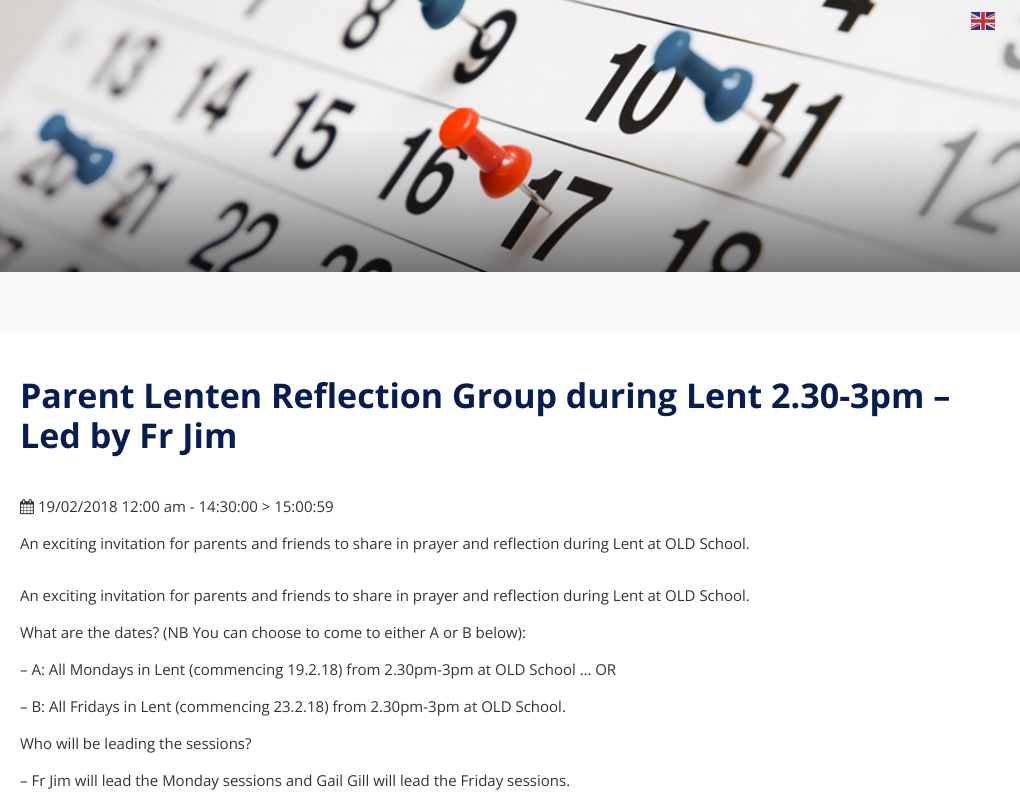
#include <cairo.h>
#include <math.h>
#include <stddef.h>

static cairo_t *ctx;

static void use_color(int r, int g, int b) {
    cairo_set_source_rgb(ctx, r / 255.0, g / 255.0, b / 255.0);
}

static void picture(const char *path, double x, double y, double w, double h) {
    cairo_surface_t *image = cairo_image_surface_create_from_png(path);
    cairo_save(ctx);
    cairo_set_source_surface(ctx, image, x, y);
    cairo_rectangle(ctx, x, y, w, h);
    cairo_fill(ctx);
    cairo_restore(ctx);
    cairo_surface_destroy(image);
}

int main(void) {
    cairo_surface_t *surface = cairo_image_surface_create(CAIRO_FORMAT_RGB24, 1020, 792);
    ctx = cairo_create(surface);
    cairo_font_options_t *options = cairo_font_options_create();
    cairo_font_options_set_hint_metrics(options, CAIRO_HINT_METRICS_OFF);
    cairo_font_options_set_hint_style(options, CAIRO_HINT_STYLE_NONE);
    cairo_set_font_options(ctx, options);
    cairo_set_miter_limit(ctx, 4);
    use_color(255, 255, 255);
    cairo_paint(ctx);
    picture("img2.png", 0, 0, 1020, 272);
    picture("img1.png", 971, 12, 24, 18);
    picture("img3.png", 0, 131, 1020, 141);
    use_color(249, 249, 249);
    cairo_rectangle(ctx, 0, 272, 1020, 60);
    cairo_fill(ctx);
    cairo_select_font_face(ctx, "Open Sans", CAIRO_FONT_SLANT_NORMAL, CAIRO_FONT_WEIGHT_BOLD);
    cairo_set_font_size(ctx, 34);
    use_color(5, 29, 81);
    cairo_move_to(ctx, 20, 408);
    cairo_show_text(ctx, "Parent Lenten Reflection Group during Lent 2.30-3pm –");
    cairo_move_to(ctx, 20, 448);
    cairo_show_text(ctx, "Led by Fr Jim");
    picture("img4.png", 20, 499, 14, 16);
    cairo_select_font_face(ctx, "Open Sans", CAIRO_FONT_SLANT_NORMAL, CAIRO_FONT_WEIGHT_NORMAL);
    cairo_set_font_size(ctx, 15);
    use_color(51, 51, 51);
    cairo_move_to(ctx, 38, 512);
    cairo_show_text(ctx, "19/02/2018 12:00 am - 14:30:00 > 15:00:59");
    cairo_move_to(ctx, 20, 549);
    cairo_show_text(ctx, "An exciting invitation for parents and friends to share in prayer and reflection during Lent at OLD School.");
    cairo_move_to(ctx, 20, 601);
    cairo_show_text(ctx, "An exciting invitation for parents and friends to share in prayer and reflection during Lent at OLD School.");
    cairo_move_to(ctx, 20, 638);
    cairo_show_text(ctx, "What are the dates? (NB You can choose to come to either A or B below):");
    cairo_move_to(ctx, 20, 675);
    cairo_show_text(ctx, "– A: All Mondays in Lent (commencing 19.2.18) from 2.30pm-3pm at OLD School … OR");
    cairo_move_to(ctx, 20, 712);
    cairo_show_text(ctx, "– B: All Fridays in Lent (commencing 23.2.18) from 2.30pm-3pm at OLD School.");
    cairo_move_to(ctx, 20, 749);
    cairo_show_text(ctx, "Who will be leading the sessions?");
    cairo_move_to(ctx, 20, 786);
    cairo_show_text(ctx, "– Fr Jim will lead the Monday sessions and Gail Gill will lead the Friday sessions.");
    cairo_surface_write_to_png(surface, "result.png");
    cairo_font_options_destroy(options);
    cairo_destroy(ctx);
    cairo_surface_destroy(surface);
    return 0;
}
